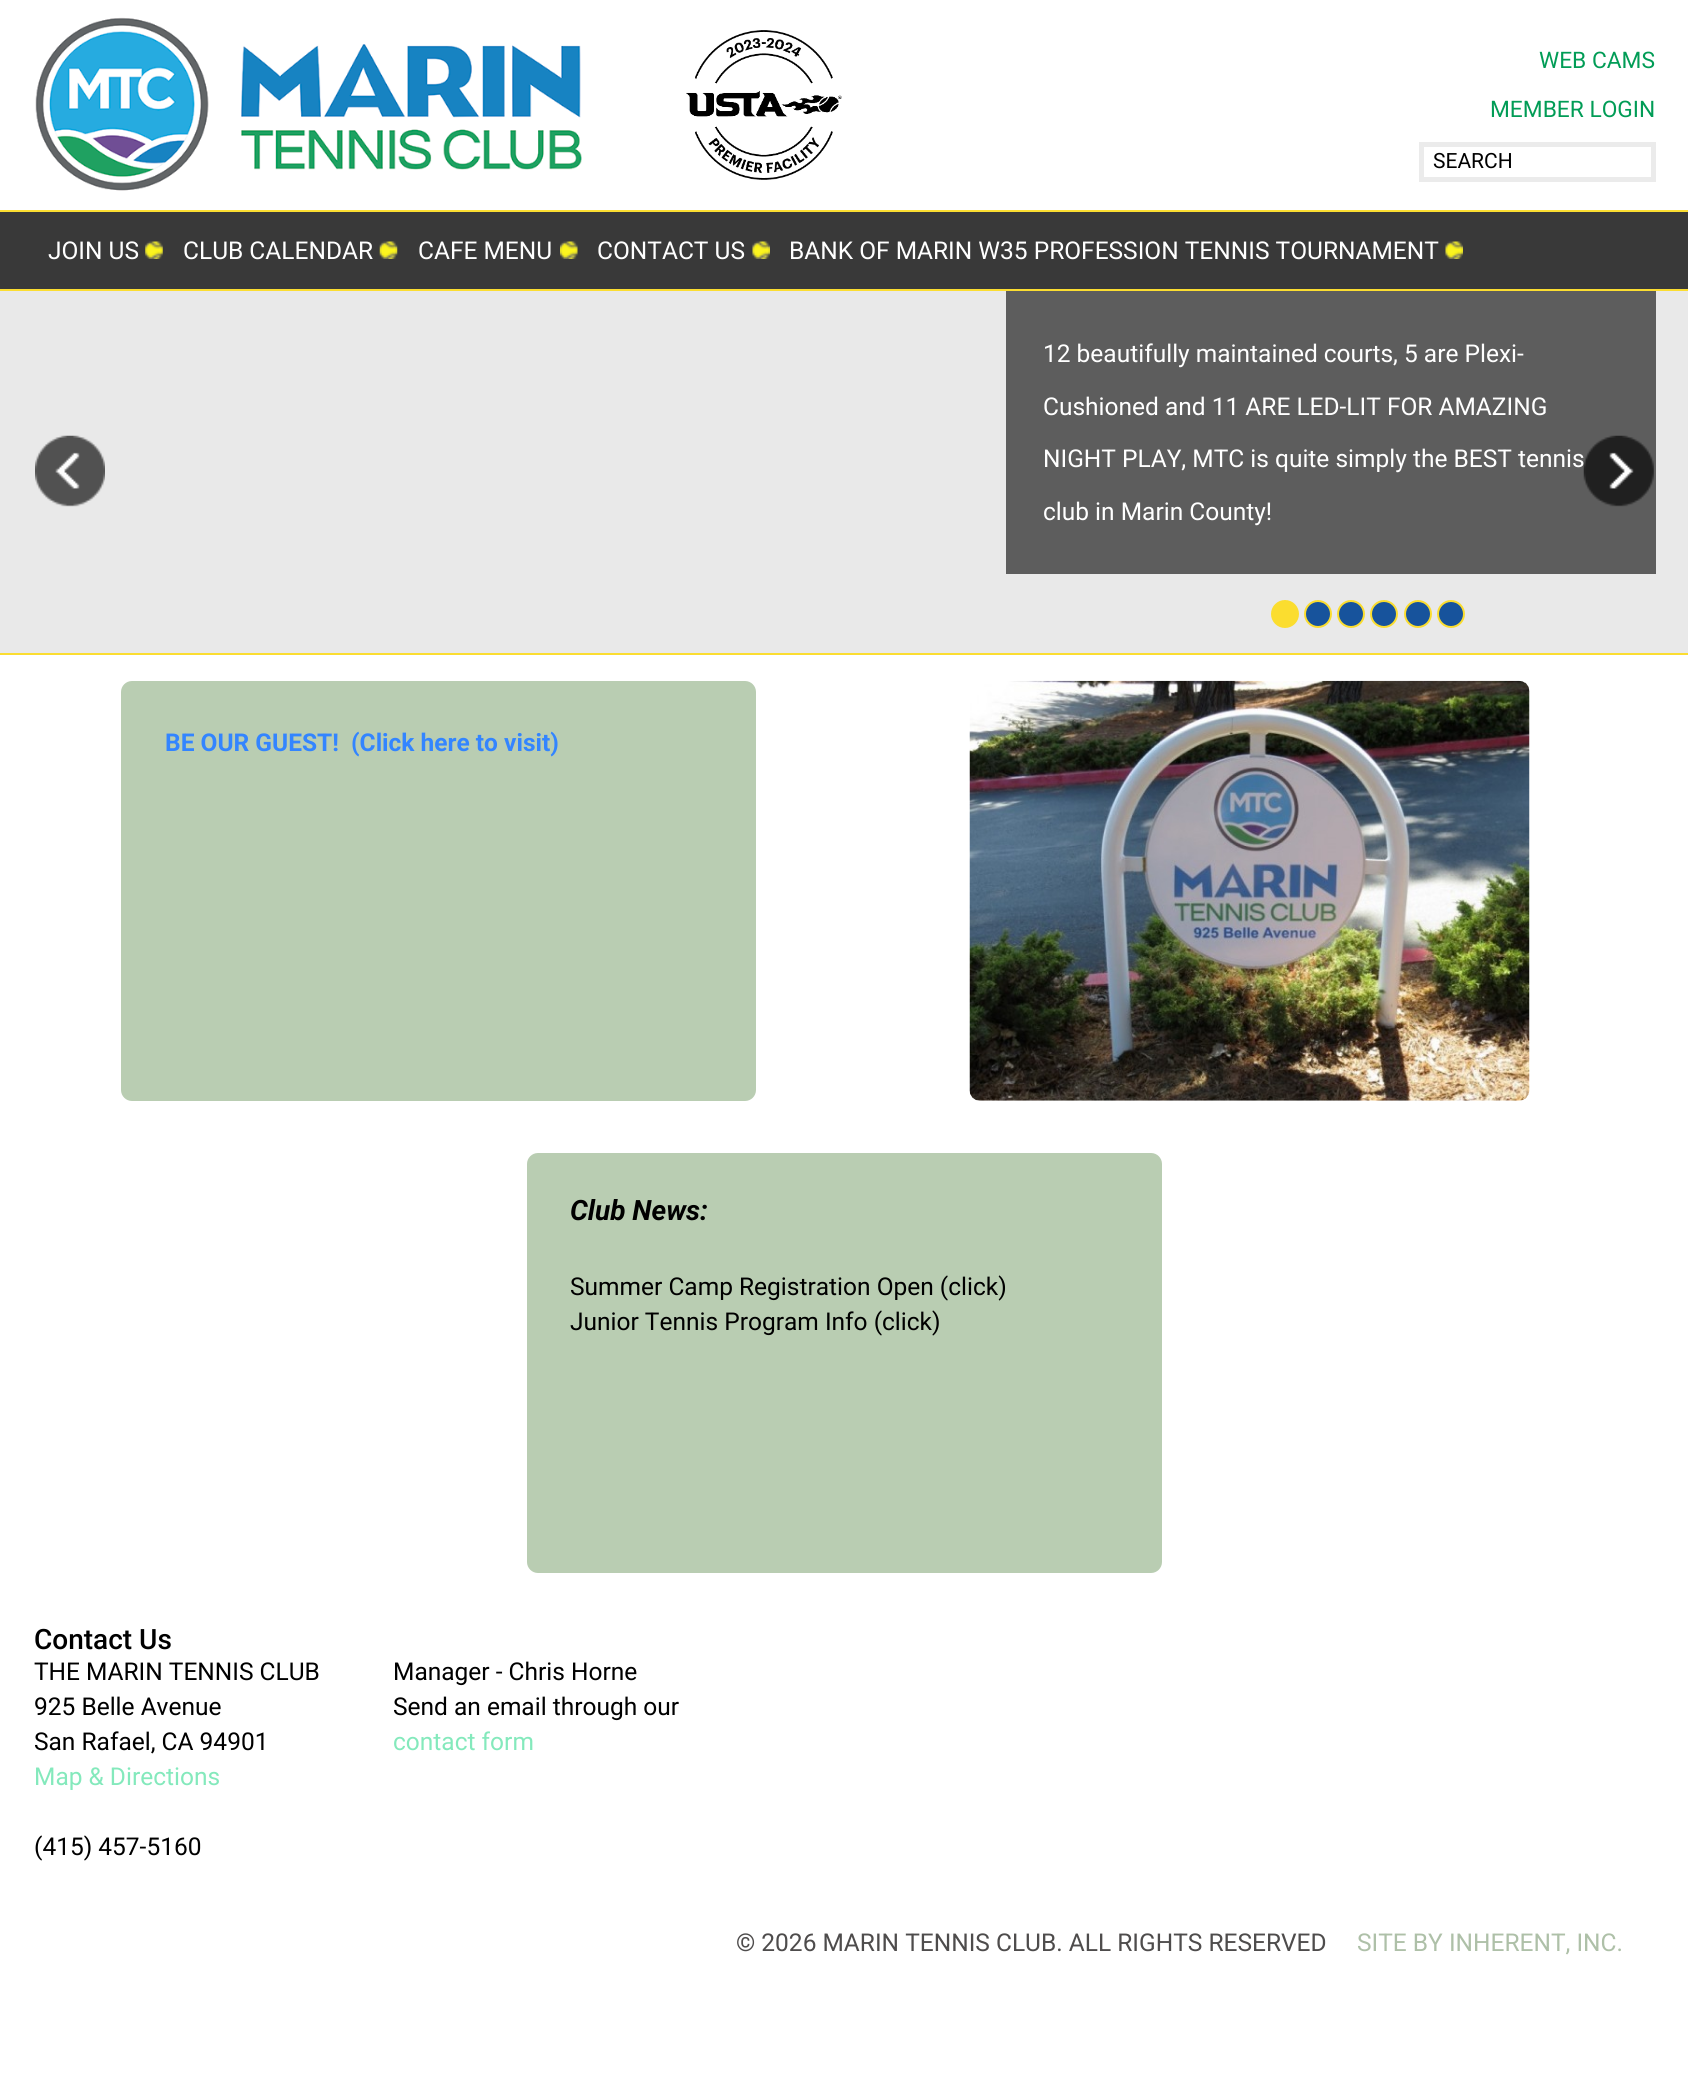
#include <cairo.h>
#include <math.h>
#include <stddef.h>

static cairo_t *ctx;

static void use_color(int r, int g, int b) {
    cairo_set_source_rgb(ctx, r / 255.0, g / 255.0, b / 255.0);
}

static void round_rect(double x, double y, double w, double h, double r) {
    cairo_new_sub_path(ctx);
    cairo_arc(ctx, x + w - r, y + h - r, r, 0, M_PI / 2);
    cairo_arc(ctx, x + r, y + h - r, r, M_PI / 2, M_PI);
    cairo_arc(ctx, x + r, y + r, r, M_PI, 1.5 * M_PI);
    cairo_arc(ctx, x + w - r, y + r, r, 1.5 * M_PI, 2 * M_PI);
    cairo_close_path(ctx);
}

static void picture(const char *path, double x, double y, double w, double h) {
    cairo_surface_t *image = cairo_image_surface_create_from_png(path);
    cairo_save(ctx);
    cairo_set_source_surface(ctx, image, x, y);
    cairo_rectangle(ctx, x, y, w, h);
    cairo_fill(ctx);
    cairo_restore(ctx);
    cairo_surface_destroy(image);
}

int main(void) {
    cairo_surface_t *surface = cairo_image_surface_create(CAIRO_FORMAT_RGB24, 1688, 2079);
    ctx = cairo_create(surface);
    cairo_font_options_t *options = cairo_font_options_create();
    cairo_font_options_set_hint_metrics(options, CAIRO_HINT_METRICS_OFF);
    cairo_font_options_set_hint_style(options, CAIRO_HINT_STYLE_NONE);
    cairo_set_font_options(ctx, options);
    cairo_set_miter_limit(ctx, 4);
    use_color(255, 255, 255);
    cairo_paint(ctx);
    picture("img1.png", 35, 17, 547, 174);
    picture("img2.png", 686, 30, 156, 150);
    cairo_select_font_face(ctx, "Roboto", CAIRO_FONT_SLANT_NORMAL, CAIRO_FONT_WEIGHT_NORMAL);
    cairo_set_font_size(ctx, 22.75);
    use_color(1, 156, 86);
    cairo_move_to(ctx, 1539, 68);
    cairo_show_text(ctx, "WEB CAMS");
    cairo_move_to(ctx, 1490, 117);
    cairo_show_text(ctx, "MEMBER LOGIN");
    cairo_rectangle(ctx, 1421.5, 144.5, 232, 35);
    use_color(235, 235, 235);
    cairo_set_line_width(ctx, 5);
    cairo_stroke(ctx);
    cairo_set_font_size(ctx, 21);
    use_color(0, 0, 0);
    cairo_move_to(ctx, 1433, 168);
    cairo_show_text(ctx, "SEARCH");
    use_color(57, 57, 57);
    cairo_rectangle(ctx, 0, 212, 1688, 77);
    cairo_fill(ctx);
    use_color(251, 221, 49);
    cairo_rectangle(ctx, 0, 210, 1688, 2);
    cairo_fill(ctx);
    cairo_rectangle(ctx, 0, 289, 1688, 2);
    cairo_fill(ctx);
    picture("img3.png", 145, 241, 18, 18);
    cairo_set_font_size(ctx, 24.5);
    use_color(255, 255, 255);
    cairo_move_to(ctx, 48, 259);
    cairo_show_text(ctx, "JOIN US");
    picture("img4.png", 379, 241, 19, 18);
    cairo_move_to(ctx, 183, 259);
    cairo_show_text(ctx, "CLUB CALENDAR");
    picture("img5.png", 560, 241, 18, 18);
    cairo_move_to(ctx, 418, 259);
    cairo_show_text(ctx, "CAFE MENU");
    picture("img6.png", 752, 241, 18, 18);
    cairo_move_to(ctx, 597, 259);
    cairo_show_text(ctx, "CONTACT US");
    picture("img7.png", 1445, 241, 18, 18);
    cairo_move_to(ctx, 789, 259);
    cairo_show_text(ctx, "BANK OF MARIN W35 PROFESSION TENNIS TOURNAMENT");
    use_color(251, 221, 49);
    cairo_rectangle(ctx, 0, 653, 1688, 2);
    cairo_fill(ctx);
    use_color(233, 233, 233);
    cairo_rectangle(ctx, 0, 291, 1688, 362);
    cairo_fill(ctx);
    picture("img8.png", 35, 435, 70, 72);
    use_color(93, 93, 93);
    cairo_rectangle(ctx, 1006, 291, 650, 283);
    cairo_fill(ctx);
    use_color(255, 255, 255);
    cairo_move_to(ctx, 1043, 362);
    cairo_show_text(ctx, "12 beautifully maintained courts, 5 are Plexi-");
    cairo_move_to(ctx, 1043, 415);
    cairo_show_text(ctx, "Cushioned and 11 ARE LED-LIT FOR AMAZING");
    cairo_move_to(ctx, 1043, 467);
    cairo_show_text(ctx, "NIGHT PLAY, MTC is quite simply the BEST tennis");
    cairo_move_to(ctx, 1043, 520);
    cairo_show_text(ctx, "club in Marin County!");
    picture("img9.png", 1583, 435, 71, 72);
    use_color(251, 221, 47);
    cairo_arc(ctx, 1285, 614, 13, 0, 2 * M_PI);
    cairo_fill_preserve(ctx);
    cairo_set_line_width(ctx, 2);
    cairo_stroke(ctx);
    use_color(23, 83, 156);
    cairo_arc(ctx, 1318, 614, 13, 0, 2 * M_PI);
    cairo_fill_preserve(ctx);
    use_color(251, 221, 47);
    cairo_stroke(ctx);
    use_color(23, 83, 156);
    cairo_arc(ctx, 1351, 614, 13, 0, 2 * M_PI);
    cairo_fill_preserve(ctx);
    use_color(251, 221, 47);
    cairo_stroke(ctx);
    use_color(23, 83, 156);
    cairo_arc(ctx, 1384, 614, 13, 0, 2 * M_PI);
    cairo_fill_preserve(ctx);
    use_color(251, 221, 47);
    cairo_stroke(ctx);
    use_color(23, 83, 156);
    cairo_arc(ctx, 1418, 614, 13, 0, 2 * M_PI);
    cairo_fill_preserve(ctx);
    use_color(251, 221, 47);
    cairo_stroke(ctx);
    use_color(23, 83, 156);
    cairo_arc(ctx, 1451, 614, 13, 0, 2 * M_PI);
    cairo_fill_preserve(ctx);
    use_color(251, 221, 47);
    cairo_stroke(ctx);
    use_color(185, 205, 178);
    round_rect(121, 681, 635, 420, 11);
    cairo_fill(ctx);
    cairo_select_font_face(ctx, "Roboto", CAIRO_FONT_SLANT_NORMAL, CAIRO_FONT_WEIGHT_BOLD);
    use_color(51, 133, 255);
    cairo_move_to(ctx, 165, 751);
    cairo_show_text(ctx, "BE OUR GUEST!  (Click here to visit)");
    picture("img10.png", 969, 680, 561, 421);
    use_color(185, 205, 178);
    round_rect(527, 1153, 635, 420, 11);
    cairo_fill(ctx);
    cairo_select_font_face(ctx, "Roboto", CAIRO_FONT_SLANT_ITALIC, CAIRO_FONT_WEIGHT_BOLD);
    cairo_set_font_size(ctx, 28);
    use_color(0, 0, 0);
    cairo_move_to(ctx, 570, 1220);
    cairo_show_text(ctx, "Club News:");
    cairo_select_font_face(ctx, "Roboto", CAIRO_FONT_SLANT_NORMAL, CAIRO_FONT_WEIGHT_NORMAL);
    cairo_set_font_size(ctx, 24.5);
    cairo_move_to(ctx, 570, 1295);
    cairo_show_text(ctx, "Summer Camp Registration Open (click)");
    cairo_move_to(ctx, 570, 1330);
    cairo_show_text(ctx, "Junior Tennis Program Info (click)");
    cairo_select_font_face(ctx, "Roboto Medium", CAIRO_FONT_SLANT_NORMAL, CAIRO_FONT_WEIGHT_NORMAL);
    cairo_set_font_size(ctx, 28);
    cairo_move_to(ctx, 34, 1649);
    cairo_show_text(ctx, "Contact Us");
    cairo_select_font_face(ctx, "Roboto", CAIRO_FONT_SLANT_NORMAL, CAIRO_FONT_WEIGHT_NORMAL);
    cairo_set_font_size(ctx, 24.5);
    cairo_move_to(ctx, 34, 1680);
    cairo_show_text(ctx, "THE MARIN TENNIS CLUB");
    cairo_move_to(ctx, 34, 1715);
    cairo_show_text(ctx, "925 Belle Avenue");
    cairo_move_to(ctx, 34, 1750);
    cairo_show_text(ctx, "San Rafael, CA 94901");
    use_color(132, 233, 188);
    cairo_move_to(ctx, 34, 1785);
    cairo_show_text(ctx, "Map & Directions");
    use_color(0, 0, 0);
    cairo_move_to(ctx, 34, 1855);
    cairo_show_text(ctx, "(415) 457-5160");
    cairo_move_to(ctx, 393, 1680);
    cairo_show_text(ctx, "Manager - Chris Horne");
    cairo_move_to(ctx, 393, 1715);
    cairo_show_text(ctx, "Send an email through our");
    use_color(132, 233, 188);
    cairo_move_to(ctx, 393, 1750);
    cairo_show_text(ctx, "contact form");
    use_color(78, 76, 76);
    cairo_move_to(ctx, 736, 1951);
    cairo_show_text(ctx, "© 2026 MARIN TENNIS CLUB. ALL RIGHTS RESERVED");
    use_color(174, 192, 168);
    cairo_move_to(ctx, 1357, 1951);
    cairo_show_text(ctx, "SITE BY INHERENT, INC.");
    cairo_surface_write_to_png(surface, "result.png");
    cairo_font_options_destroy(options);
    cairo_destroy(ctx);
    cairo_surface_destroy(surface);
    return 0;
}
